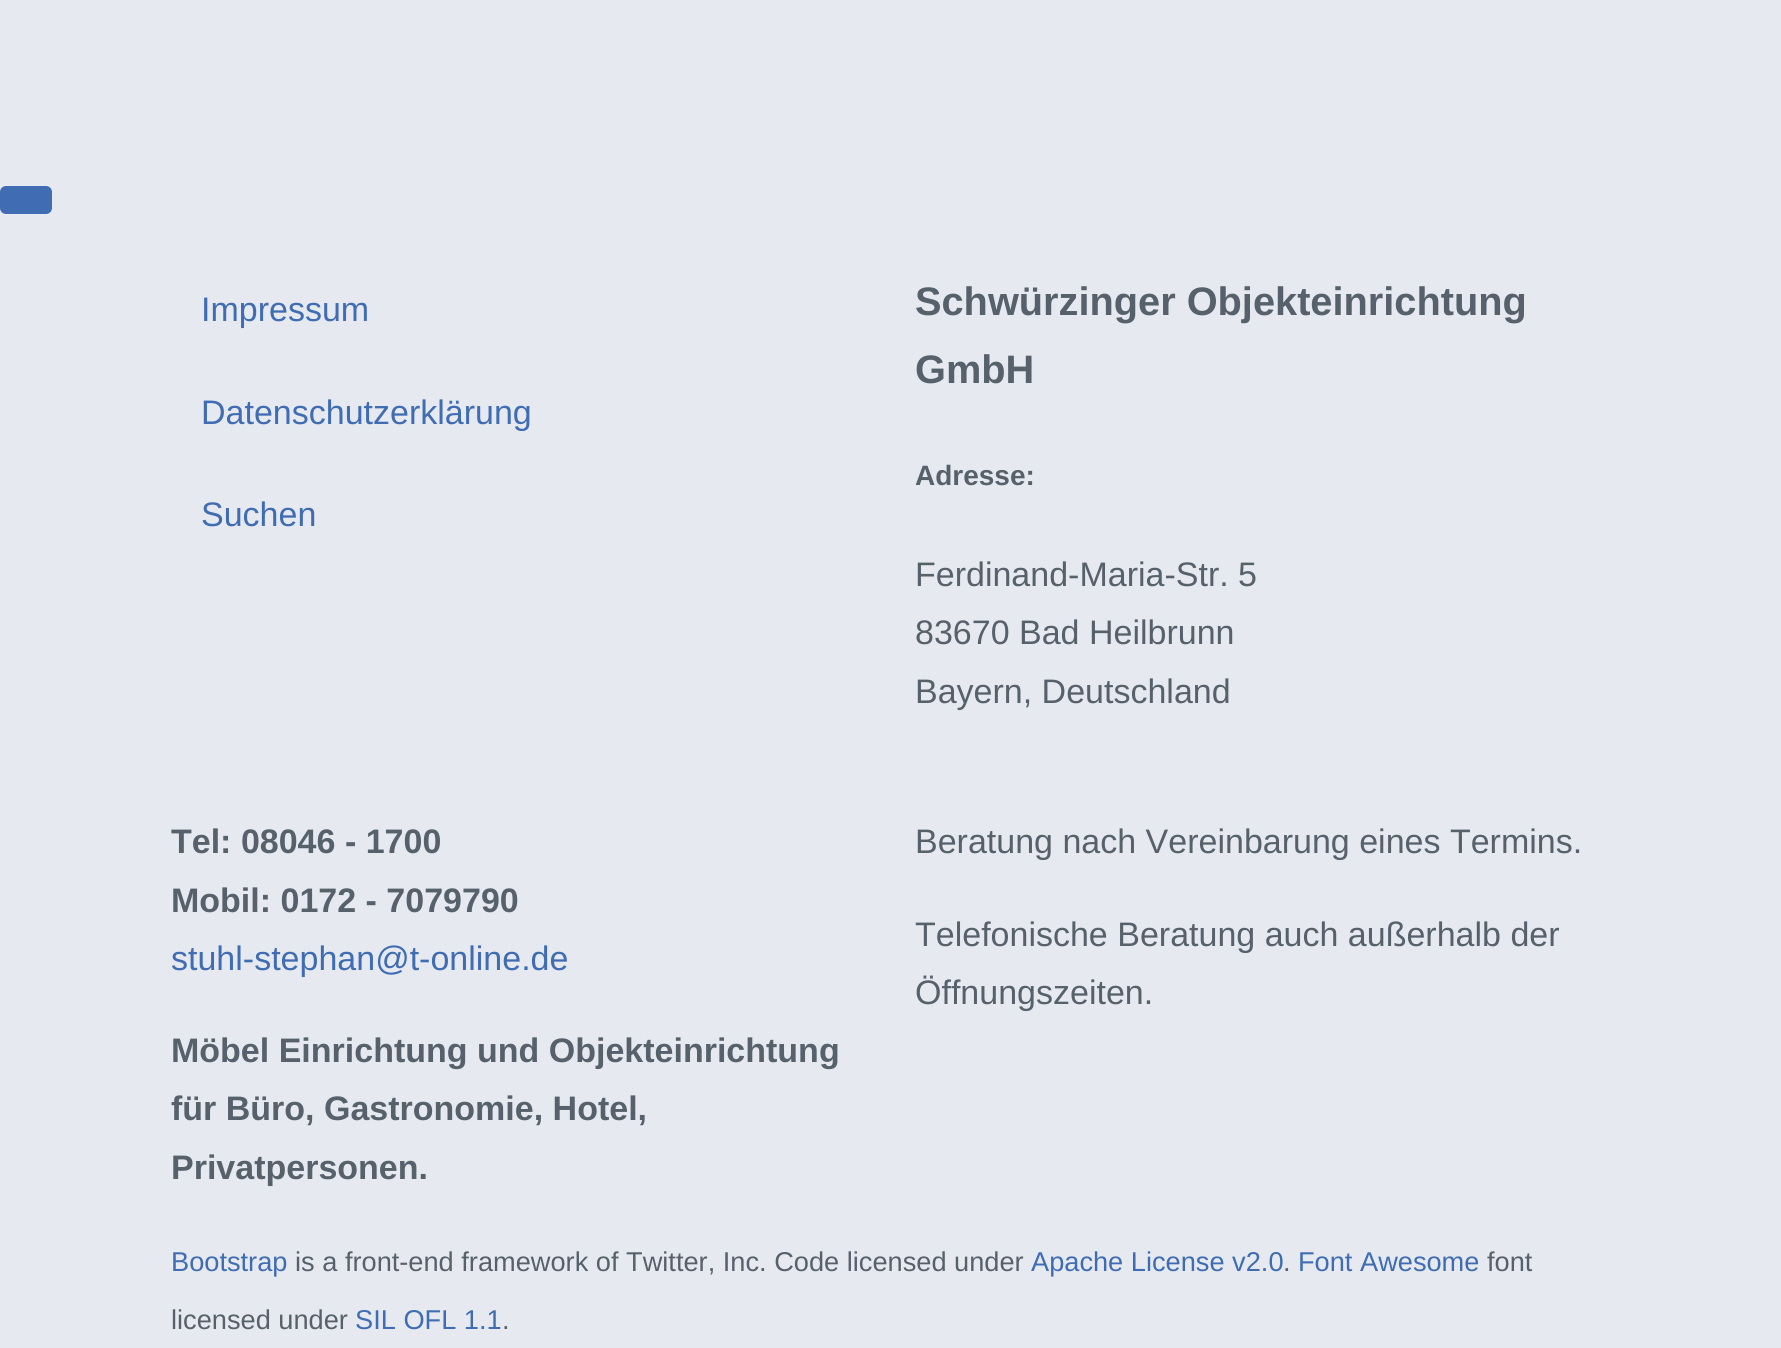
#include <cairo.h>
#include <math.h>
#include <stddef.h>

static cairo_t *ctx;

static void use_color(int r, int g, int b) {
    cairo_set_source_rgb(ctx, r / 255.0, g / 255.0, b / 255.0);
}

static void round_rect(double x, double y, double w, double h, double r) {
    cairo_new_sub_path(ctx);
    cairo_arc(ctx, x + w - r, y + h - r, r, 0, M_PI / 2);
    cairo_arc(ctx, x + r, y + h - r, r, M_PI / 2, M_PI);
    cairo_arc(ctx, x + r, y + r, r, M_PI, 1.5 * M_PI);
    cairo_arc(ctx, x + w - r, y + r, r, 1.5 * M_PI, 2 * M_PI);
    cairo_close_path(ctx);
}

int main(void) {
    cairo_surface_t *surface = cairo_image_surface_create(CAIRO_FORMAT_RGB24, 1781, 1348);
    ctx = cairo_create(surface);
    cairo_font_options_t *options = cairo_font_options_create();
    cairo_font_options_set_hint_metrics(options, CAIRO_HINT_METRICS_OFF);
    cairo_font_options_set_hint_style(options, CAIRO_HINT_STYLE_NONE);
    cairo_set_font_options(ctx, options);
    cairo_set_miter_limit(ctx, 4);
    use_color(230, 234, 240);
    cairo_paint(ctx);
    use_color(63, 108, 178);
    round_rect(1, 187, 50, 26, 5);
    cairo_fill_preserve(ctx);
    cairo_stroke(ctx);
    cairo_select_font_face(ctx, "Liberation Sans", CAIRO_FONT_SLANT_NORMAL, CAIRO_FONT_WEIGHT_NORMAL);
    cairo_set_font_size(ctx, 34);
    cairo_move_to(ctx, 201, 321);
    cairo_show_text(ctx, "Impressum");
    cairo_move_to(ctx, 201, 424);
    cairo_show_text(ctx, "Datenschutzerklärung");
    cairo_move_to(ctx, 201, 526);
    cairo_show_text(ctx, "Suchen");
    cairo_select_font_face(ctx, "Liberation Sans", CAIRO_FONT_SLANT_NORMAL, CAIRO_FONT_WEIGHT_BOLD);
    cairo_set_font_size(ctx, 39.75);
    use_color(87, 97, 108);
    cairo_move_to(ctx, 915, 315);
    cairo_show_text(ctx, "Schwürzinger Objekteinrichtung");
    cairo_move_to(ctx, 915, 383);
    cairo_show_text(ctx, "GmbH");
    cairo_set_font_size(ctx, 28);
    cairo_move_to(ctx, 915, 485);
    cairo_show_text(ctx, "Adresse:");
    cairo_select_font_face(ctx, "Liberation Sans", CAIRO_FONT_SLANT_NORMAL, CAIRO_FONT_WEIGHT_NORMAL);
    cairo_set_font_size(ctx, 34);
    cairo_move_to(ctx, 915, 586);
    cairo_show_text(ctx, "Ferdinand-Maria-Str. 5");
    cairo_move_to(ctx, 915, 644);
    cairo_show_text(ctx, "83670 Bad Heilbrunn");
    cairo_move_to(ctx, 915, 703);
    cairo_show_text(ctx, "Bayern, Deutschland");
    cairo_select_font_face(ctx, "Liberation Sans", CAIRO_FONT_SLANT_NORMAL, CAIRO_FONT_WEIGHT_BOLD);
    cairo_move_to(ctx, 171, 853);
    cairo_show_text(ctx, "Tel: 08046 - 1700");
    cairo_move_to(ctx, 171, 912);
    cairo_show_text(ctx, "Mobil: 0172 - 7079790");
    cairo_select_font_face(ctx, "Liberation Sans", CAIRO_FONT_SLANT_NORMAL, CAIRO_FONT_WEIGHT_NORMAL);
    use_color(63, 108, 178);
    cairo_move_to(ctx, 171, 970);
    cairo_show_text(ctx, "stuhl-stephan@t-online.de");
    cairo_select_font_face(ctx, "Liberation Sans", CAIRO_FONT_SLANT_NORMAL, CAIRO_FONT_WEIGHT_BOLD);
    use_color(87, 97, 108);
    cairo_move_to(ctx, 171, 1062);
    cairo_show_text(ctx, "Möbel Einrichtung und Objekteinrichtung");
    cairo_move_to(ctx, 171, 1120);
    cairo_show_text(ctx, "für Büro, Gastronomie, Hotel,");
    cairo_move_to(ctx, 171, 1179);
    cairo_show_text(ctx, "Privatpersonen.");
    cairo_select_font_face(ctx, "Liberation Sans", CAIRO_FONT_SLANT_NORMAL, CAIRO_FONT_WEIGHT_NORMAL);
    cairo_move_to(ctx, 915, 853);
    cairo_show_text(ctx, "Beratung nach Vereinbarung eines Termins.");
    cairo_move_to(ctx, 915, 946);
    cairo_show_text(ctx, "Telefonische Beratung auch außerhalb der");
    cairo_move_to(ctx, 915, 1004);
    cairo_show_text(ctx, "Öffnungszeiten.");
    cairo_set_font_size(ctx, 27.2);
    use_color(63, 108, 178);
    cairo_move_to(ctx, 171, 1271);
    cairo_show_text(ctx, "Bootstrap");
    use_color(87, 97, 108);
    cairo_move_to(ctx, 295, 1271);
    cairo_show_text(ctx, "is a front-end framework of Twitter, Inc. Code licensed under");
    use_color(63, 108, 178);
    cairo_move_to(ctx, 1031, 1271);
    cairo_show_text(ctx, "Apache License v2.0");
    use_color(87, 97, 108);
    cairo_move_to(ctx, 1283, 1271);
    cairo_show_text(ctx, ".");
    use_color(63, 108, 178);
    cairo_move_to(ctx, 1298, 1271);
    cairo_show_text(ctx, "Font Awesome");
    use_color(87, 97, 108);
    cairo_move_to(ctx, 1487, 1271);
    cairo_show_text(ctx, "font");
    cairo_move_to(ctx, 171, 1329);
    cairo_show_text(ctx, "licensed under");
    use_color(63, 108, 178);
    cairo_move_to(ctx, 355, 1329);
    cairo_show_text(ctx, "SIL OFL 1.1");
    use_color(87, 97, 108);
    cairo_move_to(ctx, 502, 1329);
    cairo_show_text(ctx, ".");
    cairo_surface_write_to_png(surface, "result.png");
    cairo_font_options_destroy(options);
    cairo_destroy(ctx);
    cairo_surface_destroy(surface);
    return 0;
}
